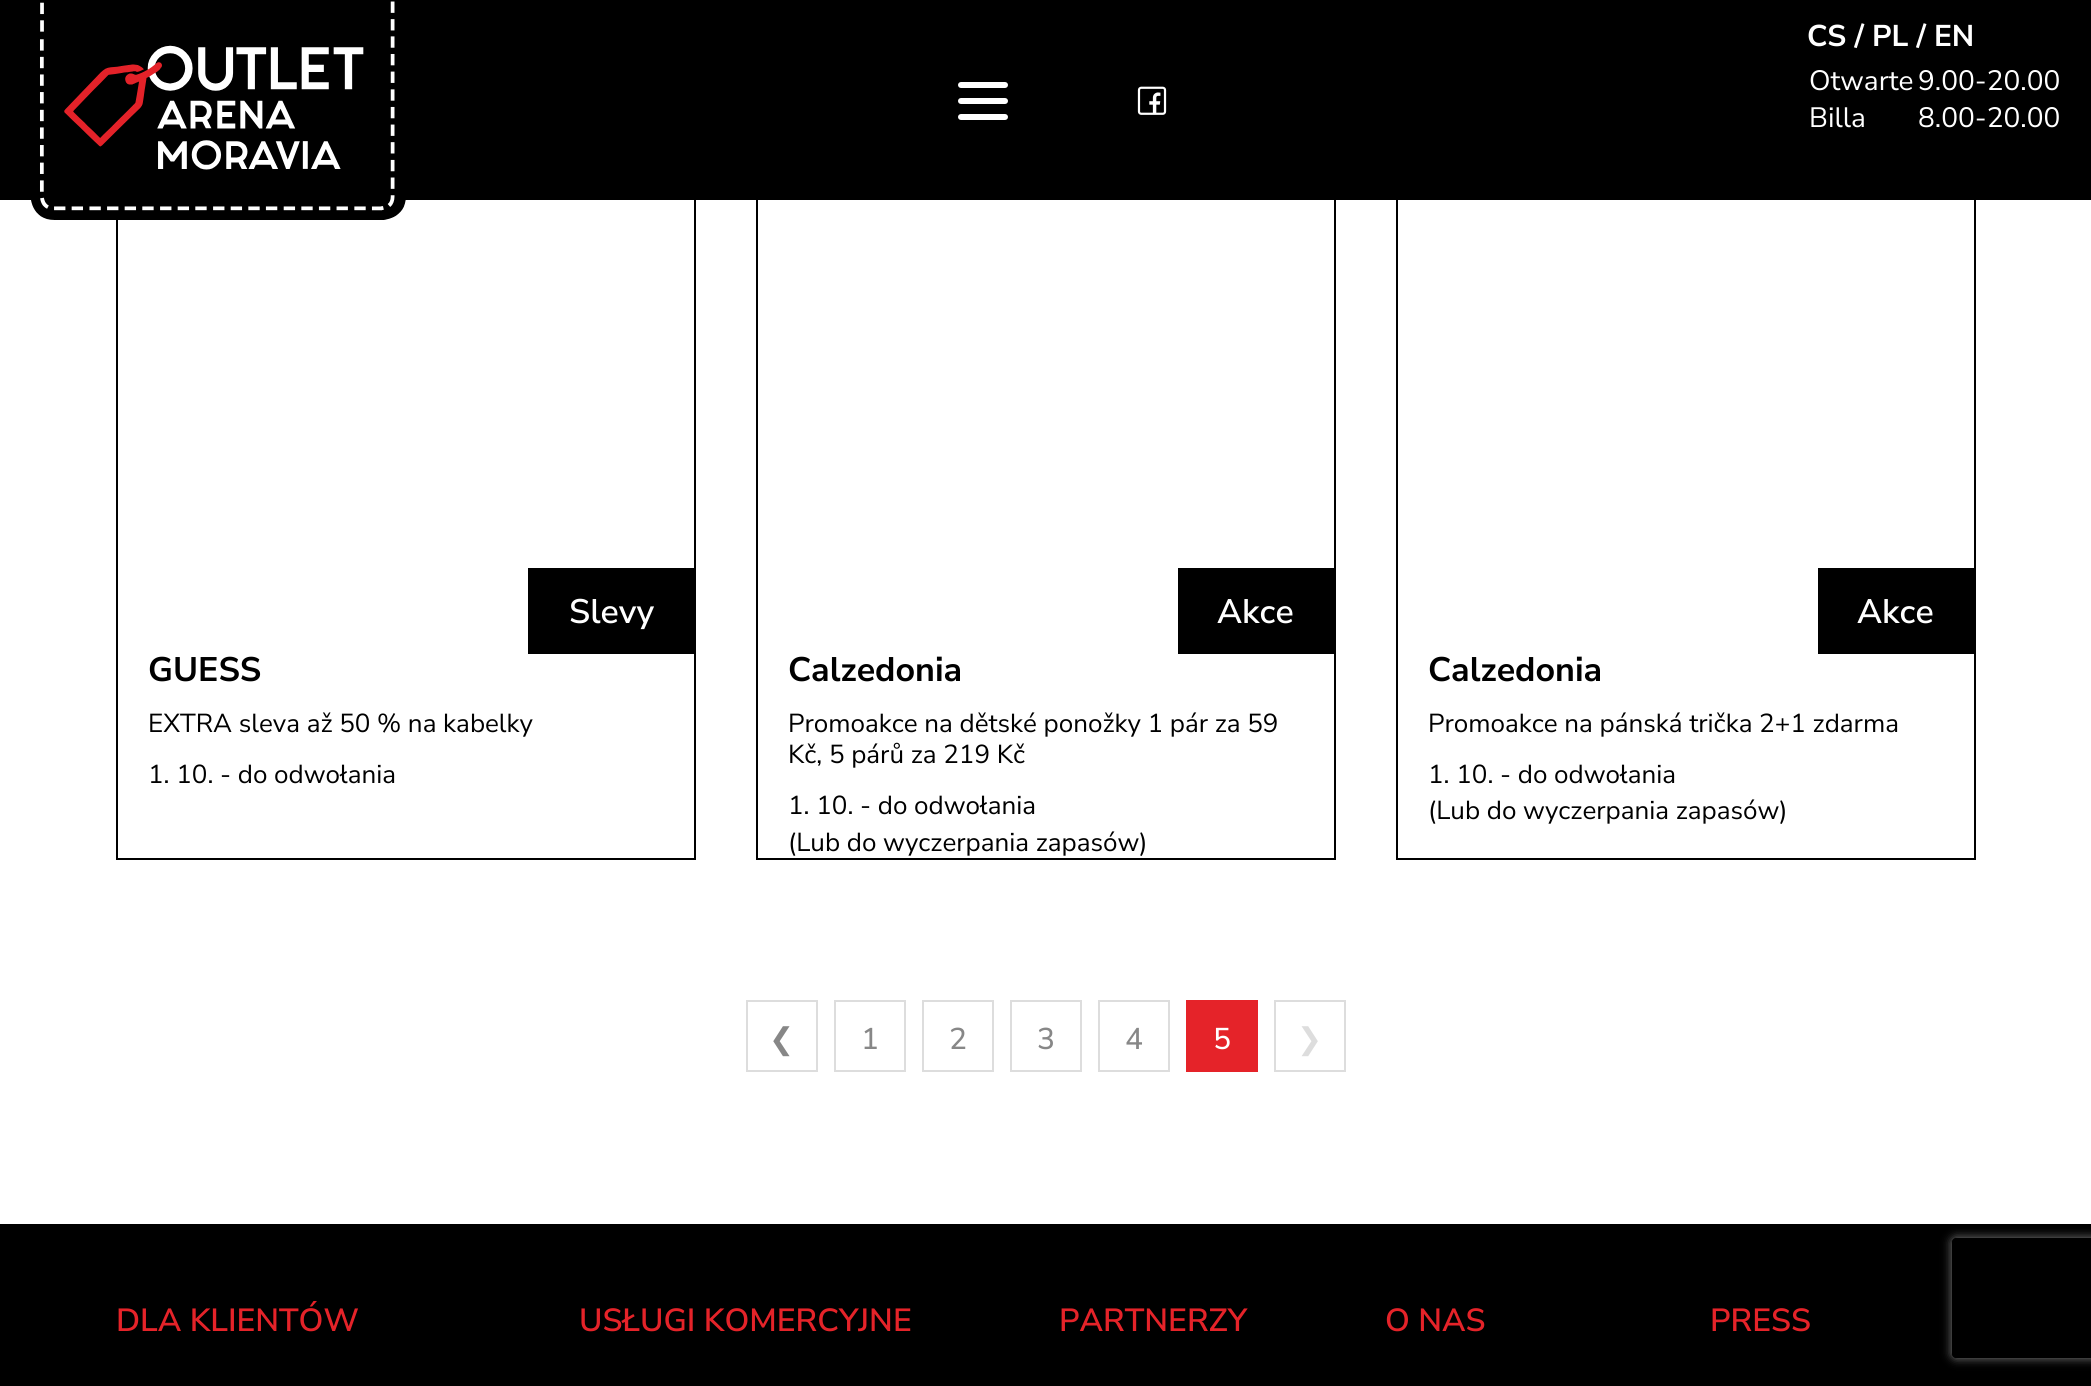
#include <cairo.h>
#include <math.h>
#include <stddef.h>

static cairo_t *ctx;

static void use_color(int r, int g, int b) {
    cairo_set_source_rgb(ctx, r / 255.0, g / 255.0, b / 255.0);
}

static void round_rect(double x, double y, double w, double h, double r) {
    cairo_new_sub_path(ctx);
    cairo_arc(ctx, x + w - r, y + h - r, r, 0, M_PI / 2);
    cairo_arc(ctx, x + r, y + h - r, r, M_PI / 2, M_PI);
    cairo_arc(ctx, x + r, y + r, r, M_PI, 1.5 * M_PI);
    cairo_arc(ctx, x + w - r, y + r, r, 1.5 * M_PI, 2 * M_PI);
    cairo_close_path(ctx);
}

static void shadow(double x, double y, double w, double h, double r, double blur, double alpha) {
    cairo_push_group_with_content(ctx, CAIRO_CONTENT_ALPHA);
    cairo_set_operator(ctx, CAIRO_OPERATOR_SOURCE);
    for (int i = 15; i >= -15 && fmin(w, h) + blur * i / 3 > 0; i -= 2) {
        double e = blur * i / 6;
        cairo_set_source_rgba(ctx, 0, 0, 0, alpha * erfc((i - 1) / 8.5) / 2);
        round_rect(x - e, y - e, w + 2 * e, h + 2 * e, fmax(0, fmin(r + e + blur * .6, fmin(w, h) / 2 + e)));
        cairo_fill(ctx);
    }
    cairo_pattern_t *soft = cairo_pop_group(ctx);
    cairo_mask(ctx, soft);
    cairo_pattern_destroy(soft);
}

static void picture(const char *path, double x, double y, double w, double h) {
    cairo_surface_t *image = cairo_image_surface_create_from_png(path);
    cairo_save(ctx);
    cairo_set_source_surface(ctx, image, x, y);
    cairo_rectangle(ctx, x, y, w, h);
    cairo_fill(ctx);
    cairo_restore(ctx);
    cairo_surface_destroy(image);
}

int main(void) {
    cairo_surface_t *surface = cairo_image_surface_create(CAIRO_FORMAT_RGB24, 2091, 1386);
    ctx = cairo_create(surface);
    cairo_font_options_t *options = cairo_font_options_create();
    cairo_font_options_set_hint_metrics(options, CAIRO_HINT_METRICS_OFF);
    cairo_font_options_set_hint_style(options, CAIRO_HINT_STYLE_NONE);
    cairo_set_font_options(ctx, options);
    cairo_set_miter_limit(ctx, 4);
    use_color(255, 255, 255);
    cairo_paint(ctx);
    cairo_rectangle(ctx, 117, 147, 578, 712);
    use_color(0, 0, 0);
    cairo_stroke(ctx);
    cairo_rectangle(ctx, 757, 147, 578, 712);
    cairo_stroke(ctx);
    cairo_rectangle(ctx, 1397, 147, 578, 712);
    cairo_stroke(ctx);
    cairo_rectangle(ctx, 0, 0, 2091, 200);
    cairo_fill(ctx);
    picture("img1.png", 31, 1, 375, 219);
    use_color(255, 255, 255);
    round_rect(958, 82, 50, 6, 3);
    cairo_fill(ctx);
    round_rect(958, 98, 50, 6, 3);
    cairo_fill(ctx);
    round_rect(958, 114, 50, 6, 3);
    cairo_fill(ctx);
    picture("img2.png", 1137, 86, 30, 29);
    cairo_select_font_face(ctx, "Nunito Sans", CAIRO_FONT_SLANT_NORMAL, CAIRO_FONT_WEIGHT_BOLD);
    cairo_set_font_size(ctx, 30);
    cairo_move_to(ctx, 1807, 46);
    cairo_show_text(ctx, "CS / PL / EN");
    cairo_select_font_face(ctx, "Nunito Sans", CAIRO_FONT_SLANT_NORMAL, CAIRO_FONT_WEIGHT_NORMAL);
    cairo_set_font_size(ctx, 28);
    cairo_move_to(ctx, 1809, 90);
    cairo_show_text(ctx, "Otwarte");
    cairo_move_to(ctx, 1918, 90);
    cairo_show_text(ctx, "9.00-20.00");
    cairo_move_to(ctx, 1809, 127);
    cairo_show_text(ctx, "Billa");
    cairo_move_to(ctx, 1918, 127);
    cairo_show_text(ctx, "8.00-20.00");
    use_color(0, 0, 0);
    cairo_rectangle(ctx, 528, 568, 166, 86);
    cairo_fill(ctx);
    cairo_select_font_face(ctx, "Nunito Sans SemiBold", CAIRO_FONT_SLANT_NORMAL, CAIRO_FONT_WEIGHT_NORMAL);
    cairo_set_font_size(ctx, 34);
    use_color(255, 255, 255);
    cairo_move_to(ctx, 569, 623);
    cairo_show_text(ctx, "Slevy");
    cairo_select_font_face(ctx, "Nunito Sans", CAIRO_FONT_SLANT_NORMAL, CAIRO_FONT_WEIGHT_BOLD);
    use_color(0, 0, 0);
    cairo_move_to(ctx, 148, 681);
    cairo_show_text(ctx, "GUESS");
    cairo_select_font_face(ctx, "Nunito Sans", CAIRO_FONT_SLANT_NORMAL, CAIRO_FONT_WEIGHT_NORMAL);
    cairo_set_font_size(ctx, 26);
    cairo_move_to(ctx, 148, 732);
    cairo_show_text(ctx, "EXTRA sleva až 50 % na kabelky");
    cairo_move_to(ctx, 148, 783);
    cairo_show_text(ctx, "1. 10. - do odwołania");
    cairo_rectangle(ctx, 1178, 568, 156, 86);
    cairo_fill(ctx);
    cairo_select_font_face(ctx, "Nunito Sans SemiBold", CAIRO_FONT_SLANT_NORMAL, CAIRO_FONT_WEIGHT_NORMAL);
    cairo_set_font_size(ctx, 34);
    use_color(255, 255, 255);
    cairo_move_to(ctx, 1217, 623);
    cairo_show_text(ctx, "Akce");
    cairo_select_font_face(ctx, "Nunito Sans", CAIRO_FONT_SLANT_NORMAL, CAIRO_FONT_WEIGHT_BOLD);
    use_color(0, 0, 0);
    cairo_move_to(ctx, 788, 681);
    cairo_show_text(ctx, "Calzedonia");
    cairo_select_font_face(ctx, "Nunito Sans", CAIRO_FONT_SLANT_NORMAL, CAIRO_FONT_WEIGHT_NORMAL);
    cairo_set_font_size(ctx, 26);
    cairo_move_to(ctx, 788, 732);
    cairo_show_text(ctx, "Promoakce na dětské ponožky 1 pár za 59");
    cairo_move_to(ctx, 788, 763);
    cairo_show_text(ctx, "Kč, 5 párů za 219 Kč");
    cairo_move_to(ctx, 788, 814);
    cairo_show_text(ctx, "1. 10. - do odwołania");
    cairo_move_to(ctx, 788, 851);
    cairo_show_text(ctx, "(Lub do wyczerpania zapasów)");
    cairo_rectangle(ctx, 1818, 568, 156, 86);
    cairo_fill(ctx);
    cairo_select_font_face(ctx, "Nunito Sans SemiBold", CAIRO_FONT_SLANT_NORMAL, CAIRO_FONT_WEIGHT_NORMAL);
    cairo_set_font_size(ctx, 34);
    use_color(255, 255, 255);
    cairo_move_to(ctx, 1857, 623);
    cairo_show_text(ctx, "Akce");
    cairo_select_font_face(ctx, "Nunito Sans", CAIRO_FONT_SLANT_NORMAL, CAIRO_FONT_WEIGHT_BOLD);
    use_color(0, 0, 0);
    cairo_move_to(ctx, 1428, 681);
    cairo_show_text(ctx, "Calzedonia");
    cairo_select_font_face(ctx, "Nunito Sans", CAIRO_FONT_SLANT_NORMAL, CAIRO_FONT_WEIGHT_NORMAL);
    cairo_set_font_size(ctx, 26);
    cairo_move_to(ctx, 1428, 732);
    cairo_show_text(ctx, "Promoakce na pánská trička 2+1 zdarma");
    cairo_move_to(ctx, 1428, 783);
    cairo_show_text(ctx, "1. 10. - do odwołania");
    cairo_move_to(ctx, 1428, 819);
    cairo_show_text(ctx, "(Lub do wyczerpania zapasów)");
    cairo_rectangle(ctx, 747, 1001, 70, 70);
    use_color(221, 221, 221);
    cairo_stroke(ctx);
    cairo_select_font_face(ctx, "DejaVu Sans", CAIRO_FONT_SLANT_NORMAL, CAIRO_FONT_WEIGHT_NORMAL);
    cairo_set_font_size(ctx, 30);
    use_color(135, 135, 135);
    cairo_move_to(ctx, 769, 1049);
    cairo_show_text(ctx, "❮");
    cairo_rectangle(ctx, 835, 1001, 70, 70);
    use_color(221, 221, 221);
    cairo_stroke(ctx);
    cairo_select_font_face(ctx, "Nunito Sans Medium", CAIRO_FONT_SLANT_NORMAL, CAIRO_FONT_WEIGHT_NORMAL);
    use_color(135, 135, 135);
    cairo_move_to(ctx, 861, 1049);
    cairo_show_text(ctx, "1");
    cairo_rectangle(ctx, 923, 1001, 70, 70);
    use_color(221, 221, 221);
    cairo_stroke(ctx);
    use_color(135, 135, 135);
    cairo_move_to(ctx, 949, 1049);
    cairo_show_text(ctx, "2");
    cairo_rectangle(ctx, 1011, 1001, 70, 70);
    use_color(221, 221, 221);
    cairo_stroke(ctx);
    use_color(135, 135, 135);
    cairo_move_to(ctx, 1037, 1049);
    cairo_show_text(ctx, "3");
    cairo_rectangle(ctx, 1099, 1001, 70, 70);
    use_color(221, 221, 221);
    cairo_stroke(ctx);
    use_color(135, 135, 135);
    cairo_move_to(ctx, 1125, 1049);
    cairo_show_text(ctx, "4");
    use_color(229, 35, 41);
    cairo_rectangle(ctx, 1186, 1000, 72, 72);
    cairo_fill(ctx);
    use_color(255, 255, 255);
    cairo_move_to(ctx, 1213, 1049);
    cairo_show_text(ctx, "5");
    cairo_rectangle(ctx, 1275, 1001, 70, 70);
    use_color(221, 221, 221);
    cairo_stroke(ctx);
    cairo_select_font_face(ctx, "DejaVu Sans", CAIRO_FONT_SLANT_NORMAL, CAIRO_FONT_WEIGHT_NORMAL);
    cairo_move_to(ctx, 1297, 1049);
    cairo_show_text(ctx, "❯");
    use_color(0, 0, 0);
    cairo_rectangle(ctx, 0, 1224, 2091, 162);
    cairo_fill(ctx);
    cairo_select_font_face(ctx, "Nunito Sans SemiBold", CAIRO_FONT_SLANT_NORMAL, CAIRO_FONT_WEIGHT_NORMAL);
    cairo_set_font_size(ctx, 32);
    use_color(229, 35, 41);
    cairo_move_to(ctx, 116, 1331);
    cairo_show_text(ctx, "DLA KLIENTÓW");
    cairo_move_to(ctx, 579, 1331);
    cairo_show_text(ctx, "USŁUGI KOMERCYJNE");
    cairo_move_to(ctx, 1059, 1331);
    cairo_show_text(ctx, "PARTNERZY");
    cairo_move_to(ctx, 1385, 1331);
    cairo_show_text(ctx, "O NAS");
    cairo_move_to(ctx, 1710, 1331);
    cairo_show_text(ctx, "PRESS");
    cairo_save(ctx);
    cairo_set_fill_rule(ctx, CAIRO_FILL_RULE_EVEN_ODD);
    cairo_new_path(ctx);
    cairo_move_to(ctx, 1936, 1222);
    cairo_line_to(ctx, 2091, 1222);
    cairo_line_to(ctx, 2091, 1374);
    cairo_line_to(ctx, 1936, 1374);
    cairo_close_path(ctx);
    cairo_move_to(ctx, 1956, 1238);
    cairo_line_to(ctx, 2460, 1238);
    cairo_curve_to(ctx, 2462, 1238, 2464, 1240, 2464, 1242);
    cairo_line_to(ctx, 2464, 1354);
    cairo_curve_to(ctx, 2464, 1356, 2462, 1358, 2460, 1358);
    cairo_line_to(ctx, 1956, 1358);
    cairo_curve_to(ctx, 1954, 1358, 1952, 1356, 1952, 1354);
    cairo_line_to(ctx, 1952, 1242);
    cairo_curve_to(ctx, 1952, 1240, 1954, 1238, 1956, 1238);
    cairo_close_path(ctx);
    cairo_clip(ctx);
    use_color(128, 128, 128);
    shadow(1952, 1238, 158, 120, 4, 5, 1);
    cairo_restore(ctx);
    cairo_surface_write_to_png(surface, "result.png");
    cairo_font_options_destroy(options);
    cairo_destroy(ctx);
    cairo_surface_destroy(surface);
    return 0;
}
